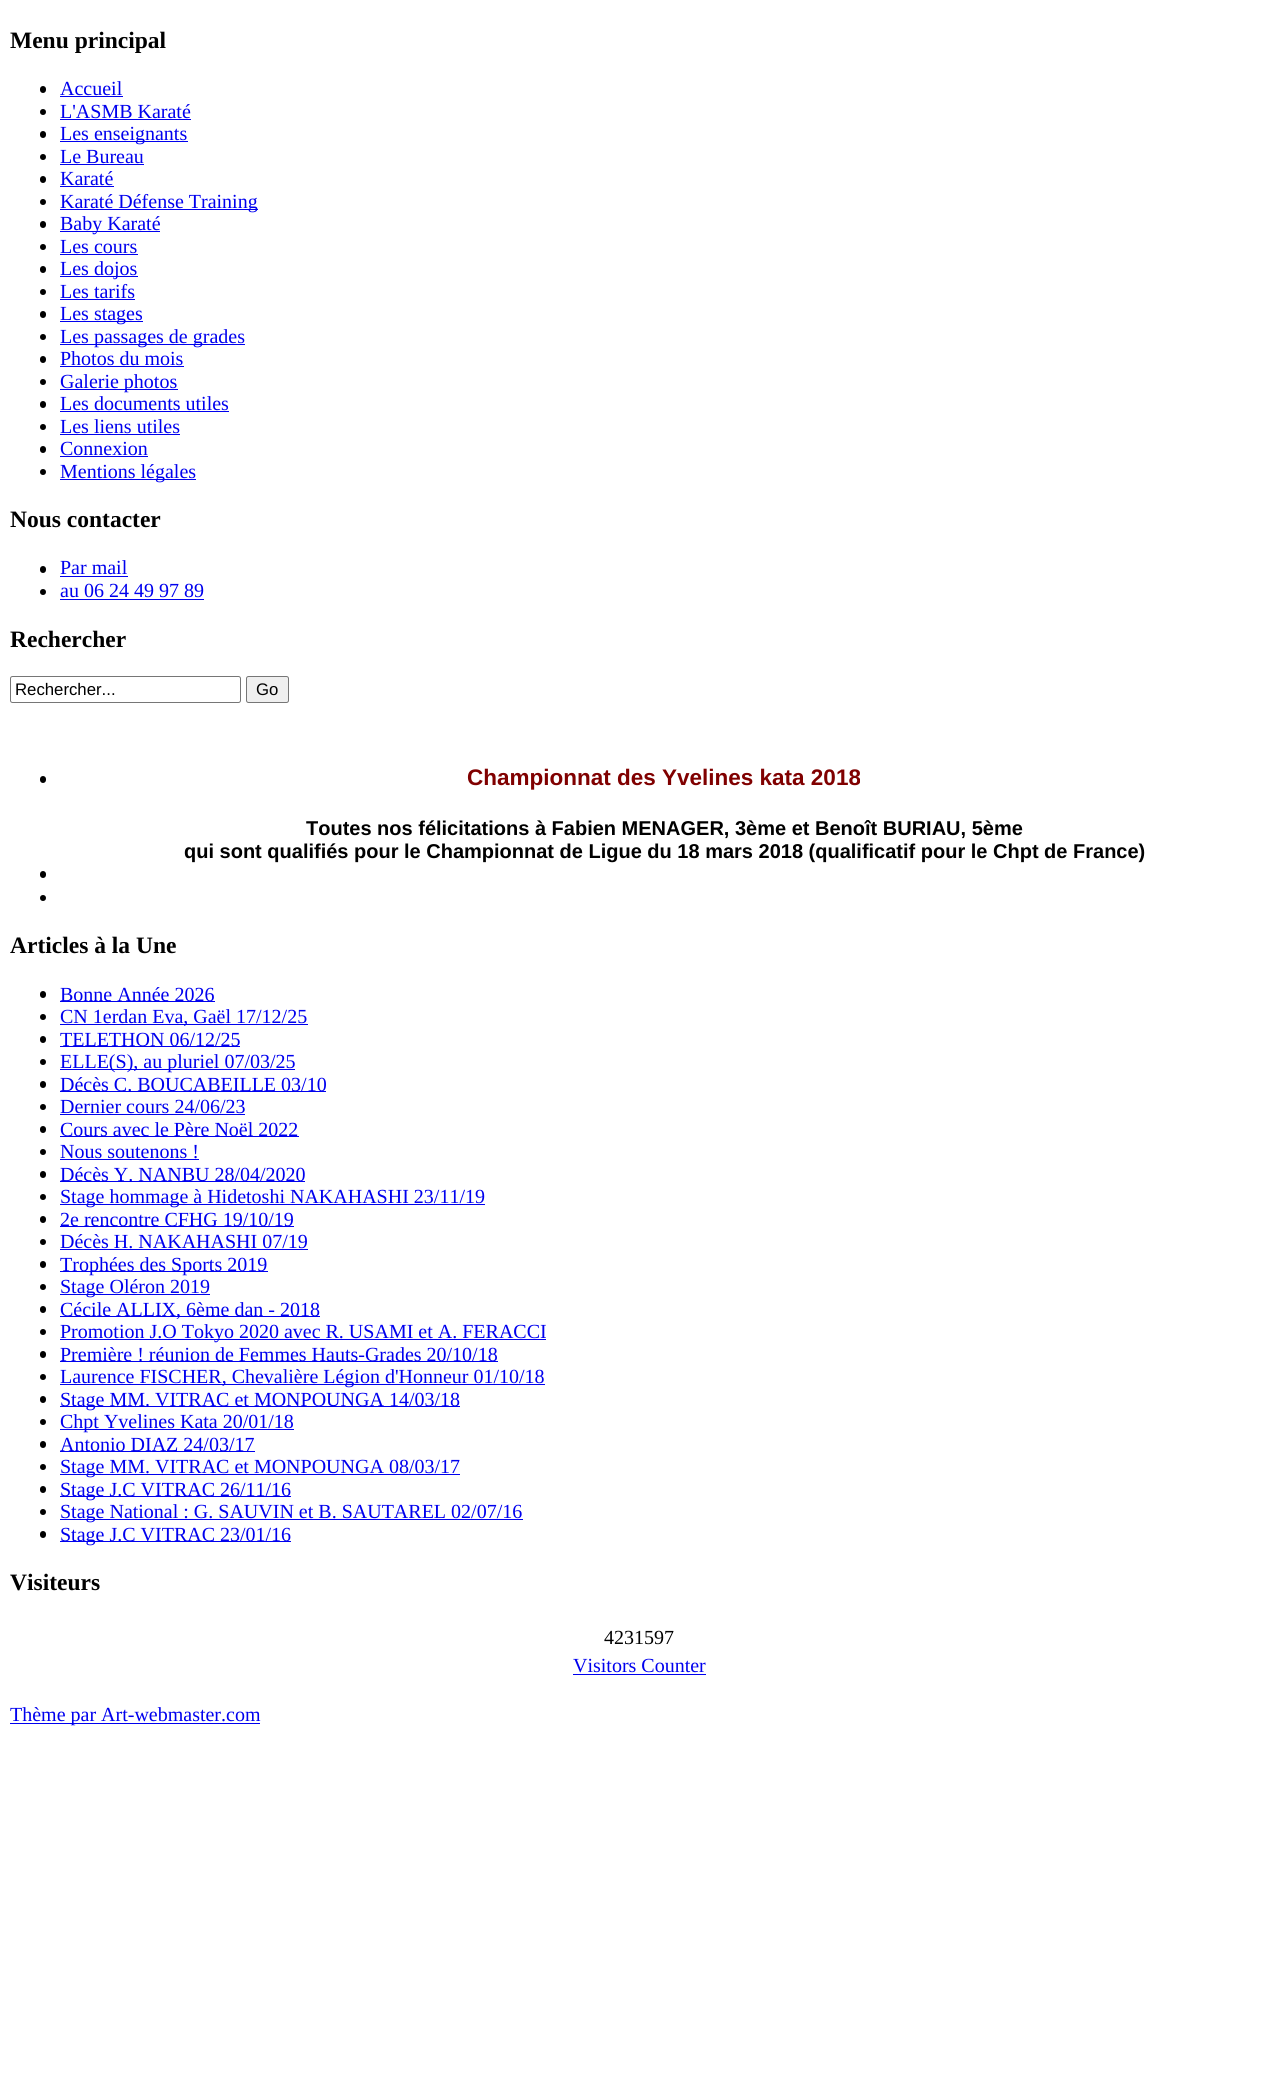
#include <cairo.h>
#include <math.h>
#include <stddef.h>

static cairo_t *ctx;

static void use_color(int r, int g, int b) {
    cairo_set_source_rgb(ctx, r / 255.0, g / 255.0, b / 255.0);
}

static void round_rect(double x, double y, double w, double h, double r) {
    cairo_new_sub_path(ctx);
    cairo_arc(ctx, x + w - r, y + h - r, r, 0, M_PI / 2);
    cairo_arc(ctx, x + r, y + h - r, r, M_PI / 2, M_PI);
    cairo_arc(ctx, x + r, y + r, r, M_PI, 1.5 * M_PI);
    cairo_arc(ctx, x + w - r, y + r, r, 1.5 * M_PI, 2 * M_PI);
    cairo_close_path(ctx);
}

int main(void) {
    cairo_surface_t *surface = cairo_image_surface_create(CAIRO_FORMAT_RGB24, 1278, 2079);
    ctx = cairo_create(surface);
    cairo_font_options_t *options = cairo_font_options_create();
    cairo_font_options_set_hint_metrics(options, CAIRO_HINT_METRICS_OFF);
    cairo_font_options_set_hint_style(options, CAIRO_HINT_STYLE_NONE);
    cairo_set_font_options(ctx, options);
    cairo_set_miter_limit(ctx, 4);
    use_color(255, 255, 255);
    cairo_paint(ctx);
    cairo_select_font_face(ctx, "Liberation Serif", CAIRO_FONT_SLANT_NORMAL, CAIRO_FONT_WEIGHT_BOLD);
    cairo_set_font_size(ctx, 23.5);
    use_color(0, 0, 0);
    cairo_move_to(ctx, 10, 48);
    cairo_show_text(ctx, "Menu principal");
    round_rect(40, 86, 6, 7, 3);
    cairo_fill(ctx);
    cairo_select_font_face(ctx, "Liberation Serif", CAIRO_FONT_SLANT_NORMAL, CAIRO_FONT_WEIGHT_NORMAL);
    cairo_set_font_size(ctx, 20);
    use_color(0, 0, 238);
    cairo_move_to(ctx, 60, 95);
    cairo_show_text(ctx, "Accueil");
    cairo_rectangle(ctx, 60, 96, 63, 1);
    cairo_fill(ctx);
    use_color(0, 0, 0);
    cairo_arc(ctx, 43, 112, 3, 0, 2 * M_PI);
    cairo_fill(ctx);
    use_color(0, 0, 238);
    cairo_move_to(ctx, 60, 118);
    cairo_show_text(ctx, "L'ASMB Karaté");
    cairo_rectangle(ctx, 60, 119, 131, 1);
    cairo_fill(ctx);
    use_color(0, 0, 0);
    round_rect(40, 131, 6, 7, 3);
    cairo_fill(ctx);
    use_color(0, 0, 238);
    cairo_rectangle(ctx, 60, 141, 128, 1);
    cairo_fill(ctx);
    cairo_move_to(ctx, 60, 140);
    cairo_show_text(ctx, "Les enseignants");
    use_color(0, 0, 0);
    cairo_new_path(ctx);
    cairo_arc(ctx, 43, 157, 3, 0, 2 * M_PI);
    cairo_fill(ctx);
    use_color(0, 0, 238);
    cairo_move_to(ctx, 60, 163);
    cairo_show_text(ctx, "Le Bureau");
    cairo_rectangle(ctx, 60, 164, 84, 1);
    cairo_fill(ctx);
    use_color(0, 0, 0);
    round_rect(40, 176, 6, 7, 3);
    cairo_fill(ctx);
    use_color(0, 0, 238);
    cairo_move_to(ctx, 60, 185);
    cairo_show_text(ctx, "Karaté");
    cairo_rectangle(ctx, 60, 186, 54, 1);
    cairo_fill(ctx);
    use_color(0, 0, 0);
    cairo_arc(ctx, 43, 202, 3, 0, 2 * M_PI);
    cairo_fill(ctx);
    use_color(0, 0, 238);
    cairo_rectangle(ctx, 60, 209, 198, 1);
    cairo_fill(ctx);
    cairo_move_to(ctx, 60, 208);
    cairo_show_text(ctx, "Karaté Défense Training");
    use_color(0, 0, 0);
    round_rect(40, 221, 6, 7, 3);
    cairo_fill(ctx);
    use_color(0, 0, 238);
    cairo_rectangle(ctx, 60, 231, 100, 1);
    cairo_fill(ctx);
    cairo_move_to(ctx, 60, 230);
    cairo_show_text(ctx, "Baby Karaté");
    use_color(0, 0, 0);
    cairo_new_path(ctx);
    cairo_arc(ctx, 43, 247, 3, 0, 2 * M_PI);
    cairo_fill(ctx);
    use_color(0, 0, 238);
    cairo_move_to(ctx, 60, 253);
    cairo_show_text(ctx, "Les cours");
    cairo_rectangle(ctx, 60, 254, 78, 1);
    cairo_fill(ctx);
    use_color(0, 0, 0);
    round_rect(40, 266, 6, 7, 3);
    cairo_fill(ctx);
    use_color(0, 0, 238);
    cairo_rectangle(ctx, 60, 276, 78, 1);
    cairo_fill(ctx);
    cairo_move_to(ctx, 60, 275);
    cairo_show_text(ctx, "Les dojos");
    use_color(0, 0, 0);
    cairo_new_path(ctx);
    cairo_arc(ctx, 43, 292, 3, 0, 2 * M_PI);
    cairo_fill(ctx);
    use_color(0, 0, 238);
    cairo_move_to(ctx, 60, 298);
    cairo_show_text(ctx, "Les tarifs");
    cairo_rectangle(ctx, 60, 299, 75, 1);
    cairo_fill(ctx);
    use_color(0, 0, 0);
    round_rect(40, 311, 6, 7, 3);
    cairo_fill(ctx);
    use_color(0, 0, 238);
    cairo_rectangle(ctx, 60, 321, 83, 1);
    cairo_fill(ctx);
    cairo_move_to(ctx, 60, 320);
    cairo_show_text(ctx, "Les stages");
    use_color(0, 0, 0);
    cairo_new_path(ctx);
    cairo_arc(ctx, 43, 337, 3, 0, 2 * M_PI);
    cairo_fill(ctx);
    use_color(0, 0, 238);
    cairo_rectangle(ctx, 60, 344, 185, 1);
    cairo_fill(ctx);
    cairo_move_to(ctx, 60, 343);
    cairo_show_text(ctx, "Les passages de grades");
    use_color(0, 0, 0);
    round_rect(40, 356, 6, 7, 3);
    cairo_fill(ctx);
    use_color(0, 0, 238);
    cairo_move_to(ctx, 60, 365);
    cairo_show_text(ctx, "Photos du mois");
    cairo_rectangle(ctx, 60, 366, 124, 1);
    cairo_fill(ctx);
    use_color(0, 0, 0);
    cairo_arc(ctx, 43, 382, 3, 0, 2 * M_PI);
    cairo_fill(ctx);
    use_color(0, 0, 238);
    cairo_rectangle(ctx, 60, 389, 118, 1);
    cairo_fill(ctx);
    cairo_move_to(ctx, 60, 388);
    cairo_show_text(ctx, "Galerie photos");
    use_color(0, 0, 0);
    round_rect(40, 401, 6, 7, 3);
    cairo_fill(ctx);
    use_color(0, 0, 238);
    cairo_move_to(ctx, 60, 410);
    cairo_show_text(ctx, "Les documents utiles");
    cairo_rectangle(ctx, 60, 411, 169, 1);
    cairo_fill(ctx);
    use_color(0, 0, 0);
    cairo_arc(ctx, 43, 427, 3, 0, 2 * M_PI);
    cairo_fill(ctx);
    use_color(0, 0, 238);
    cairo_move_to(ctx, 60, 433);
    cairo_show_text(ctx, "Les liens utiles");
    cairo_rectangle(ctx, 60, 434, 120, 1);
    cairo_fill(ctx);
    use_color(0, 0, 0);
    round_rect(40, 446, 6, 7, 3);
    cairo_fill(ctx);
    use_color(0, 0, 238);
    cairo_move_to(ctx, 60, 455);
    cairo_show_text(ctx, "Connexion");
    cairo_rectangle(ctx, 60, 456, 88, 1);
    cairo_fill(ctx);
    use_color(0, 0, 0);
    cairo_arc(ctx, 43, 472, 3, 0, 2 * M_PI);
    cairo_fill(ctx);
    use_color(0, 0, 238);
    cairo_rectangle(ctx, 60, 479, 136, 1);
    cairo_fill(ctx);
    cairo_move_to(ctx, 60, 478);
    cairo_show_text(ctx, "Mentions légales");
    cairo_select_font_face(ctx, "Liberation Serif", CAIRO_FONT_SLANT_NORMAL, CAIRO_FONT_WEIGHT_BOLD);
    cairo_set_font_size(ctx, 23.5);
    use_color(0, 0, 0);
    cairo_move_to(ctx, 10, 527);
    cairo_show_text(ctx, "Nous contacter");
    round_rect(40, 566, 6, 7, 3);
    cairo_fill(ctx);
    cairo_select_font_face(ctx, "Liberation Serif", CAIRO_FONT_SLANT_NORMAL, CAIRO_FONT_WEIGHT_NORMAL);
    cairo_set_font_size(ctx, 20);
    use_color(0, 0, 238);
    cairo_move_to(ctx, 60, 574);
    cairo_show_text(ctx, "Par mail");
    cairo_rectangle(ctx, 60, 576, 68, 1);
    cairo_fill(ctx);
    use_color(0, 0, 0);
    cairo_arc(ctx, 43, 592, 3, 0, 2 * M_PI);
    cairo_fill(ctx);
    use_color(0, 0, 238);
    cairo_move_to(ctx, 60, 597);
    cairo_show_text(ctx, "au 06 24 49 97 89");
    cairo_rectangle(ctx, 60, 599, 144, 1);
    cairo_fill(ctx);
    cairo_select_font_face(ctx, "Liberation Serif", CAIRO_FONT_SLANT_NORMAL, CAIRO_FONT_WEIGHT_BOLD);
    cairo_set_font_size(ctx, 23.5);
    use_color(0, 0, 0);
    cairo_move_to(ctx, 10, 647);
    cairo_show_text(ctx, "Rechercher");
    round_rect(10.5, 676.5, 230, 26, 2);
    use_color(118, 118, 118);
    cairo_set_line_width(ctx, 1);
    cairo_stroke(ctx);
    cairo_select_font_face(ctx, "Liberation Sans", CAIRO_FONT_SLANT_NORMAL, CAIRO_FONT_WEIGHT_NORMAL);
    cairo_set_font_size(ctx, 16.75);
    use_color(0, 0, 0);
    cairo_move_to(ctx, 15, 695);
    cairo_show_text(ctx, "Rechercher...");
    use_color(239, 239, 239);
    round_rect(246.5, 676.5, 42, 26, 2);
    cairo_fill_preserve(ctx);
    use_color(118, 118, 118);
    cairo_stroke(ctx);
    use_color(0, 0, 0);
    cairo_move_to(ctx, 256, 695);
    cairo_show_text(ctx, "Go");
    round_rect(40, 776, 6, 7, 3);
    cairo_fill(ctx);
    cairo_select_font_face(ctx, "Liberation Sans", CAIRO_FONT_SLANT_NORMAL, CAIRO_FONT_WEIGHT_BOLD);
    cairo_set_font_size(ctx, 22.5);
    use_color(128, 0, 0);
    cairo_move_to(ctx, 467, 785);
    cairo_show_text(ctx, "Championnat des Yvelines kata 2018");
    cairo_set_font_size(ctx, 20);
    use_color(0, 0, 0);
    cairo_move_to(ctx, 306, 835);
    cairo_show_text(ctx, "Toutes nos félicitations à Fabien MENAGER, 3ème et Benoît BURIAU, 5ème");
    cairo_move_to(ctx, 184, 858);
    cairo_show_text(ctx, "qui sont qualifiés pour le Championnat de Ligue du 18 mars 2018 (qualificatif pour le Chpt de France)");
    round_rect(40, 871, 6, 7, 3);
    cairo_fill(ctx);
    cairo_arc(ctx, 43, 898, 3, 0, 2 * M_PI);
    cairo_fill(ctx);
    cairo_select_font_face(ctx, "Liberation Serif", CAIRO_FONT_SLANT_NORMAL, CAIRO_FONT_WEIGHT_BOLD);
    cairo_set_font_size(ctx, 23.5);
    cairo_move_to(ctx, 10, 953);
    cairo_show_text(ctx, "Articles à la Une");
    round_rect(40, 991, 6, 7, 3);
    cairo_fill(ctx);
    use_color(0, 0, 238);
    cairo_rectangle(ctx, 60, 1001, 155, 1);
    cairo_fill(ctx);
    cairo_select_font_face(ctx, "Liberation Serif", CAIRO_FONT_SLANT_NORMAL, CAIRO_FONT_WEIGHT_NORMAL);
    cairo_set_font_size(ctx, 20);
    cairo_move_to(ctx, 60, 1001);
    cairo_show_text(ctx, "Bonne Année 2026");
    use_color(0, 0, 0);
    cairo_new_path(ctx);
    cairo_arc(ctx, 43, 1017, 3, 0, 2 * M_PI);
    cairo_fill(ctx);
    use_color(0, 0, 238);
    cairo_rectangle(ctx, 60, 1024, 248, 1);
    cairo_fill(ctx);
    cairo_move_to(ctx, 60, 1023);
    cairo_show_text(ctx, "CN 1erdan Eva, Gaël 17/12/25");
    use_color(0, 0, 0);
    round_rect(40, 1036, 6, 7, 3);
    cairo_fill(ctx);
    use_color(0, 0, 238);
    cairo_rectangle(ctx, 60, 1046, 180, 1);
    cairo_fill(ctx);
    cairo_move_to(ctx, 60, 1046);
    cairo_show_text(ctx, "TELETHON 06/12/25");
    use_color(0, 0, 0);
    cairo_new_path(ctx);
    cairo_arc(ctx, 43, 1062, 3, 0, 2 * M_PI);
    cairo_fill(ctx);
    use_color(0, 0, 238);
    cairo_rectangle(ctx, 60, 1069, 235, 1);
    cairo_fill(ctx);
    cairo_move_to(ctx, 60, 1068);
    cairo_show_text(ctx, "ELLE(S), au pluriel 07/03/25");
    use_color(0, 0, 0);
    round_rect(40, 1081, 6, 7, 3);
    cairo_fill(ctx);
    use_color(0, 0, 238);
    cairo_rectangle(ctx, 60, 1091, 266, 1);
    cairo_fill(ctx);
    cairo_move_to(ctx, 60, 1091);
    cairo_show_text(ctx, "Décès C. BOUCABEILLE 03/10");
    use_color(0, 0, 0);
    cairo_new_path(ctx);
    cairo_arc(ctx, 43, 1107, 3, 0, 2 * M_PI);
    cairo_fill(ctx);
    use_color(0, 0, 238);
    cairo_move_to(ctx, 60, 1113);
    cairo_show_text(ctx, "Dernier cours 24/06/23");
    cairo_rectangle(ctx, 60, 1114, 185, 1);
    cairo_fill(ctx);
    use_color(0, 0, 0);
    round_rect(40, 1126, 6, 7, 3);
    cairo_fill(ctx);
    use_color(0, 0, 238);
    cairo_rectangle(ctx, 60, 1136, 239, 1);
    cairo_fill(ctx);
    cairo_move_to(ctx, 60, 1136);
    cairo_show_text(ctx, "Cours avec le Père Noël 2022");
    use_color(0, 0, 0);
    cairo_new_path(ctx);
    cairo_arc(ctx, 43, 1152, 3, 0, 2 * M_PI);
    cairo_fill(ctx);
    use_color(0, 0, 238);
    cairo_move_to(ctx, 60, 1158);
    cairo_show_text(ctx, "Nous soutenons !");
    cairo_rectangle(ctx, 60, 1159, 139, 1);
    cairo_fill(ctx);
    use_color(0, 0, 0);
    round_rect(40, 1171, 6, 7, 3);
    cairo_fill(ctx);
    use_color(0, 0, 238);
    cairo_rectangle(ctx, 60, 1181, 245, 1);
    cairo_fill(ctx);
    cairo_move_to(ctx, 60, 1181);
    cairo_show_text(ctx, "Décès Y. NANBU 28/04/2020");
    use_color(0, 0, 0);
    cairo_new_path(ctx);
    cairo_arc(ctx, 43, 1197, 3, 0, 2 * M_PI);
    cairo_fill(ctx);
    use_color(0, 0, 238);
    cairo_rectangle(ctx, 60, 1204, 425, 1);
    cairo_fill(ctx);
    cairo_move_to(ctx, 60, 1203);
    cairo_show_text(ctx, "Stage hommage à Hidetoshi NAKAHASHI 23/11/19");
    use_color(0, 0, 0);
    round_rect(40, 1216, 6, 7, 3);
    cairo_fill(ctx);
    use_color(0, 0, 238);
    cairo_rectangle(ctx, 60, 1226, 234, 1);
    cairo_fill(ctx);
    cairo_move_to(ctx, 60, 1226);
    cairo_show_text(ctx, "2e rencontre CFHG 19/10/19");
    use_color(0, 0, 0);
    cairo_new_path(ctx);
    cairo_arc(ctx, 43, 1242, 3, 0, 2 * M_PI);
    cairo_fill(ctx);
    use_color(0, 0, 238);
    cairo_move_to(ctx, 60, 1248);
    cairo_show_text(ctx, "Décès H. NAKAHASHI 07/19");
    cairo_rectangle(ctx, 60, 1249, 248, 1);
    cairo_fill(ctx);
    use_color(0, 0, 0);
    round_rect(40, 1261, 6, 7, 3);
    cairo_fill(ctx);
    use_color(0, 0, 238);
    cairo_rectangle(ctx, 60, 1271, 208, 1);
    cairo_fill(ctx);
    cairo_move_to(ctx, 60, 1271);
    cairo_show_text(ctx, "Trophées des Sports 2019");
    use_color(0, 0, 0);
    cairo_new_path(ctx);
    cairo_arc(ctx, 43, 1287, 3, 0, 2 * M_PI);
    cairo_fill(ctx);
    use_color(0, 0, 238);
    cairo_rectangle(ctx, 60, 1294, 150, 1);
    cairo_fill(ctx);
    cairo_move_to(ctx, 60, 1293);
    cairo_show_text(ctx, "Stage Oléron 2019");
    use_color(0, 0, 0);
    round_rect(40, 1306, 6, 7, 3);
    cairo_fill(ctx);
    use_color(0, 0, 238);
    cairo_rectangle(ctx, 60, 1316, 260, 1);
    cairo_fill(ctx);
    cairo_move_to(ctx, 60, 1316);
    cairo_show_text(ctx, "Cécile ALLIX, 6ème dan - 2018");
    use_color(0, 0, 0);
    cairo_new_path(ctx);
    cairo_arc(ctx, 43, 1332, 3, 0, 2 * M_PI);
    cairo_fill(ctx);
    use_color(0, 0, 238);
    cairo_rectangle(ctx, 60, 1339, 486, 1);
    cairo_fill(ctx);
    cairo_move_to(ctx, 60, 1338);
    cairo_show_text(ctx, "Promotion J.O Tokyo 2020 avec R. USAMI et A. FERACCI");
    use_color(0, 0, 0);
    round_rect(40, 1351, 6, 7, 3);
    cairo_fill(ctx);
    use_color(0, 0, 238);
    cairo_rectangle(ctx, 60, 1361, 438, 1);
    cairo_fill(ctx);
    cairo_move_to(ctx, 60, 1361);
    cairo_show_text(ctx, "Première ! réunion de Femmes Hauts-Grades 20/10/18");
    use_color(0, 0, 0);
    cairo_new_path(ctx);
    cairo_arc(ctx, 43, 1377, 3, 0, 2 * M_PI);
    cairo_fill(ctx);
    use_color(0, 0, 238);
    cairo_rectangle(ctx, 60, 1384, 485, 1);
    cairo_fill(ctx);
    cairo_move_to(ctx, 60, 1383);
    cairo_show_text(ctx, "Laurence FISCHER, Chevalière Légion d'Honneur 01/10/18");
    use_color(0, 0, 0);
    round_rect(40, 1396, 6, 7, 3);
    cairo_fill(ctx);
    use_color(0, 0, 238);
    cairo_rectangle(ctx, 60, 1406, 400, 1);
    cairo_fill(ctx);
    cairo_move_to(ctx, 60, 1406);
    cairo_show_text(ctx, "Stage MM. VITRAC et MONPOUNGA 14/03/18");
    use_color(0, 0, 0);
    cairo_new_path(ctx);
    cairo_arc(ctx, 43, 1422, 3, 0, 2 * M_PI);
    cairo_fill(ctx);
    use_color(0, 0, 238);
    cairo_rectangle(ctx, 60, 1429, 234, 1);
    cairo_fill(ctx);
    cairo_move_to(ctx, 60, 1428);
    cairo_show_text(ctx, "Chpt Yvelines Kata 20/01/18");
    use_color(0, 0, 0);
    round_rect(40, 1441, 6, 7, 3);
    cairo_fill(ctx);
    use_color(0, 0, 238);
    cairo_rectangle(ctx, 60, 1451, 195, 1);
    cairo_fill(ctx);
    cairo_move_to(ctx, 60, 1451);
    cairo_show_text(ctx, "Antonio DIAZ 24/03/17");
    use_color(0, 0, 0);
    cairo_new_path(ctx);
    cairo_arc(ctx, 43, 1467, 3, 0, 2 * M_PI);
    cairo_fill(ctx);
    use_color(0, 0, 238);
    cairo_rectangle(ctx, 60, 1474, 400, 1);
    cairo_fill(ctx);
    cairo_move_to(ctx, 60, 1473);
    cairo_show_text(ctx, "Stage MM. VITRAC et MONPOUNGA 08/03/17");
    use_color(0, 0, 0);
    round_rect(40, 1486, 6, 7, 3);
    cairo_fill(ctx);
    use_color(0, 0, 238);
    cairo_rectangle(ctx, 60, 1496, 231, 1);
    cairo_fill(ctx);
    cairo_move_to(ctx, 60, 1496);
    cairo_show_text(ctx, "Stage J.C VITRAC 26/11/16");
    use_color(0, 0, 0);
    cairo_new_path(ctx);
    cairo_arc(ctx, 43, 1512, 3, 0, 2 * M_PI);
    cairo_fill(ctx);
    use_color(0, 0, 238);
    cairo_rectangle(ctx, 60, 1519, 463, 1);
    cairo_fill(ctx);
    cairo_move_to(ctx, 60, 1518);
    cairo_show_text(ctx, "Stage National : G. SAUVIN et B. SAUTAREL 02/07/16");
    use_color(0, 0, 0);
    round_rect(40, 1531, 6, 7, 3);
    cairo_fill(ctx);
    use_color(0, 0, 238);
    cairo_rectangle(ctx, 60, 1541, 231, 1);
    cairo_fill(ctx);
    cairo_move_to(ctx, 60, 1541);
    cairo_show_text(ctx, "Stage J.C VITRAC 23/01/16");
    cairo_select_font_face(ctx, "Liberation Serif", CAIRO_FONT_SLANT_NORMAL, CAIRO_FONT_WEIGHT_BOLD);
    cairo_set_font_size(ctx, 23.5);
    use_color(0, 0, 0);
    cairo_move_to(ctx, 10, 1590);
    cairo_show_text(ctx, "Visiteurs");
    cairo_select_font_face(ctx, "Liberation Serif", CAIRO_FONT_SLANT_NORMAL, CAIRO_FONT_WEIGHT_NORMAL);
    cairo_set_font_size(ctx, 20);
    cairo_move_to(ctx, 604, 1644);
    cairo_show_text(ctx, "4231597");
    use_color(0, 0, 238);
    cairo_move_to(ctx, 573, 1672);
    cairo_show_text(ctx, "Visitors Counter");
    cairo_rectangle(ctx, 573, 1674, 133, 1);
    cairo_fill(ctx);
    cairo_rectangle(ctx, 10, 1723, 250, 1);
    cairo_fill(ctx);
    cairo_move_to(ctx, 10, 1721);
    cairo_show_text(ctx, "Thème par Art-webmaster.com");
    cairo_surface_write_to_png(surface, "result.png");
    cairo_font_options_destroy(options);
    cairo_destroy(ctx);
    cairo_surface_destroy(surface);
    return 0;
}
